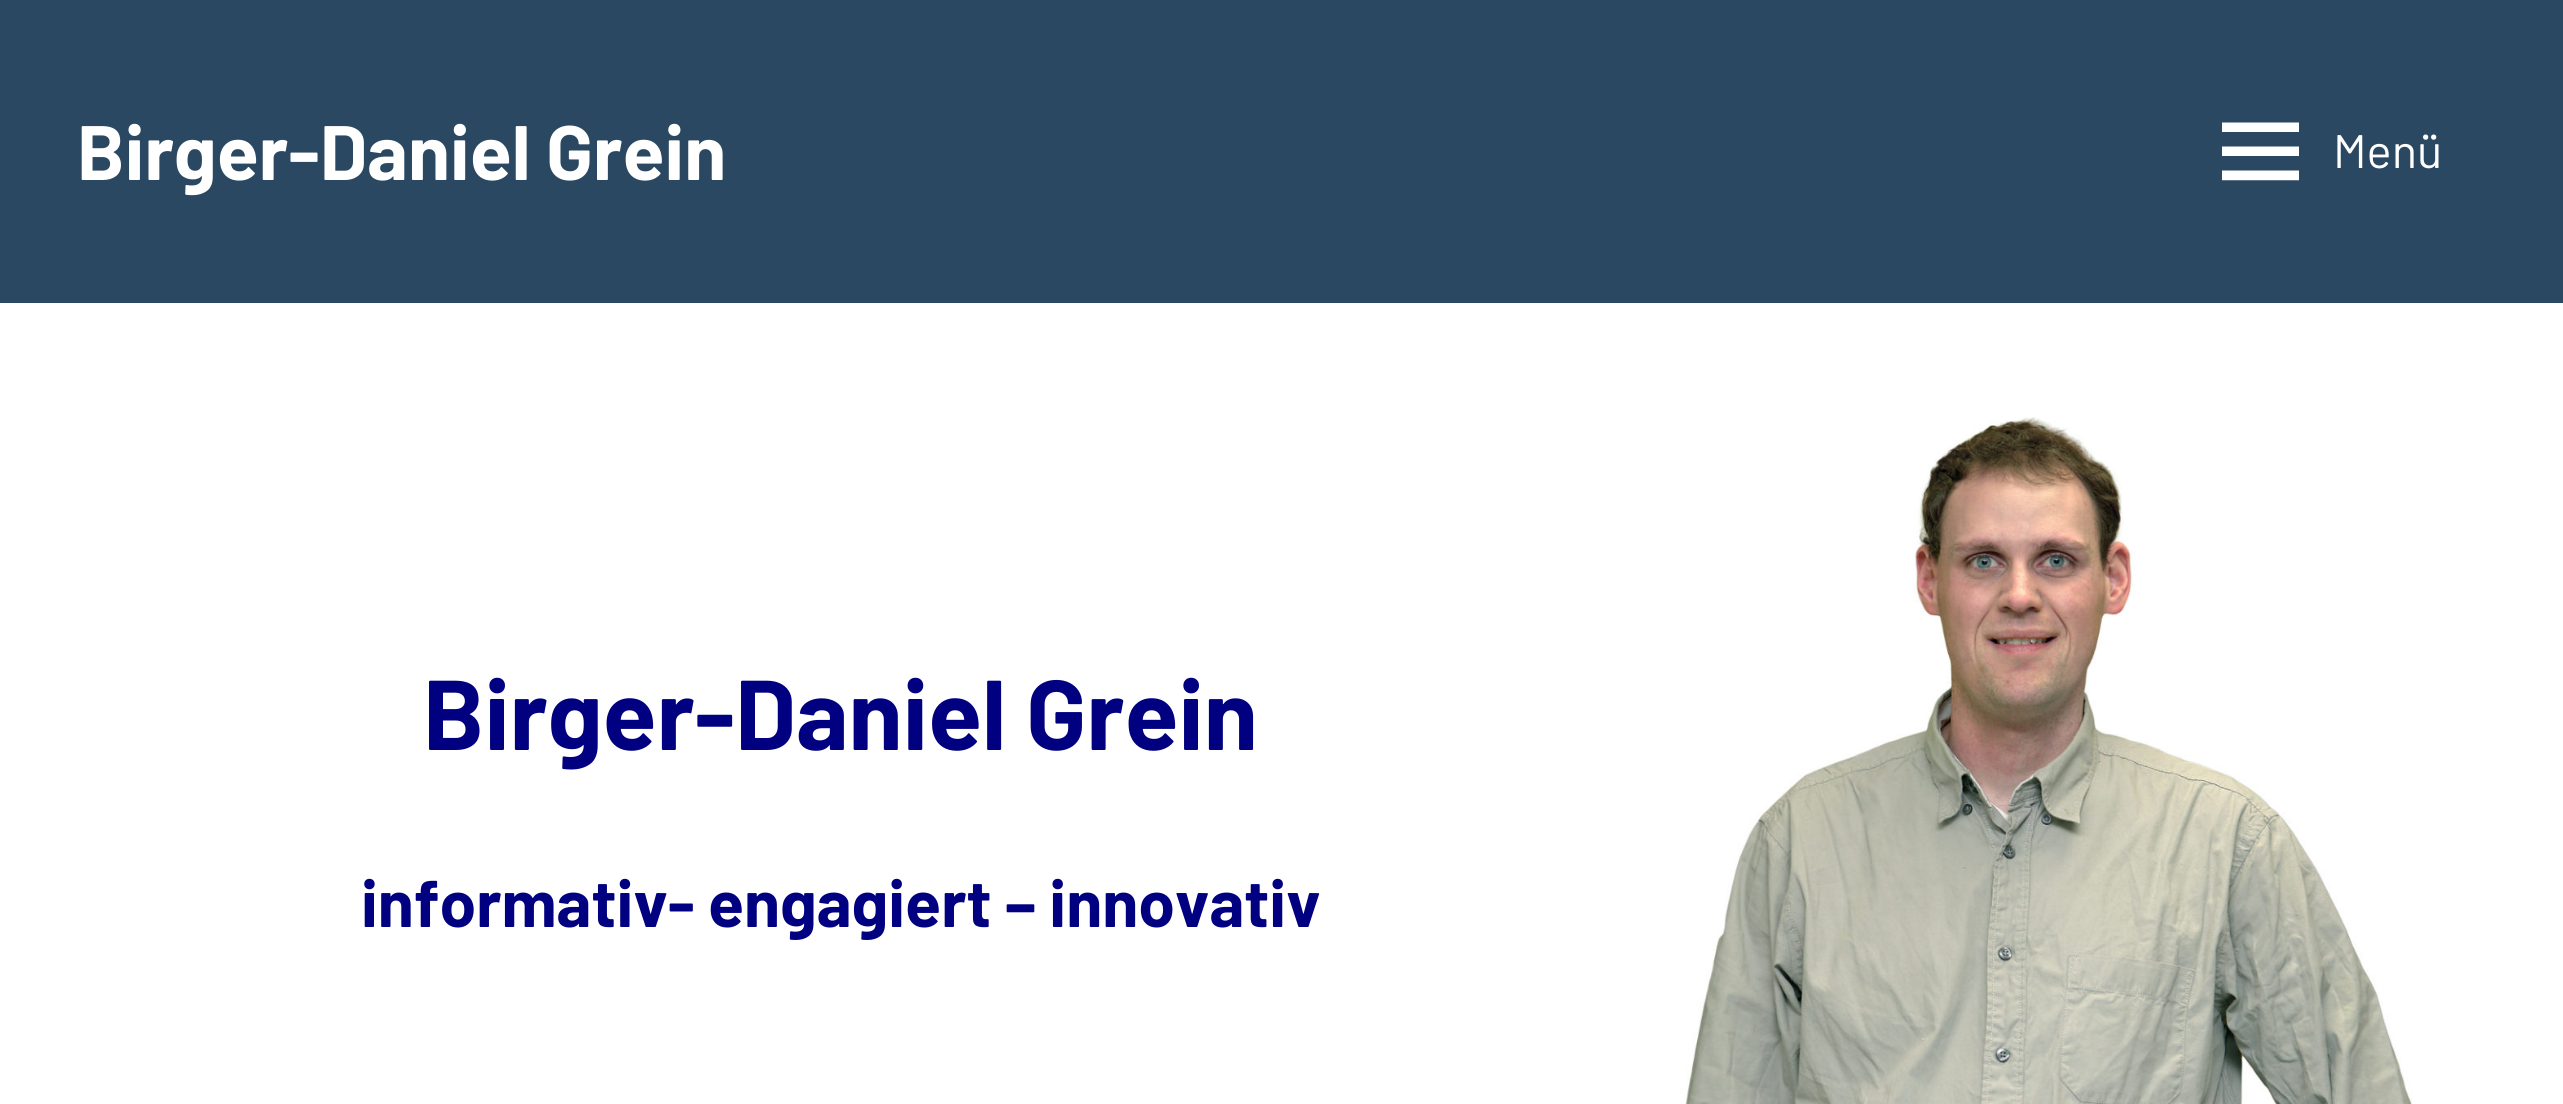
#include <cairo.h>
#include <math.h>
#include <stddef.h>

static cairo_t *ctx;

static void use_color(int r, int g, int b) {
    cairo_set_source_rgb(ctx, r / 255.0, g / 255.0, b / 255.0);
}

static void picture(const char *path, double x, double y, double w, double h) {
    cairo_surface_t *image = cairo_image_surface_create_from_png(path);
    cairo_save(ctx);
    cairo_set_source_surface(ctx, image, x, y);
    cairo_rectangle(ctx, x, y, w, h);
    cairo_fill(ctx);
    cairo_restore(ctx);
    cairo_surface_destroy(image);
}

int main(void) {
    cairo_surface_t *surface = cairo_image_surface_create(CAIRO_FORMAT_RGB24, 2563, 1104);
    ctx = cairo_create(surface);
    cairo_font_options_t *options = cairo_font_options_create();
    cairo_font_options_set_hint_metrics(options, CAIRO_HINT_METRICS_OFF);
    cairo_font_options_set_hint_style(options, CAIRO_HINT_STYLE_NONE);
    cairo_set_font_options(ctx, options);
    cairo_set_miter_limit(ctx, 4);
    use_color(42, 72, 97);
    cairo_paint(ctx);
    cairo_select_font_face(ctx, "Barlow", CAIRO_FONT_SLANT_NORMAL, CAIRO_FONT_WEIGHT_BOLD);
    cairo_set_font_size(ctx, 77);
    use_color(255, 255, 255);
    cairo_move_to(ctx, 77, 180);
    cairo_show_text(ctx, "Birger-Daniel Grein");
    picture("img1.png", 2222, 122, 77, 59);
    cairo_select_font_face(ctx, "Barlow", CAIRO_FONT_SLANT_NORMAL, CAIRO_FONT_WEIGHT_NORMAL);
    cairo_set_font_size(ctx, 47);
    cairo_move_to(ctx, 2333, 168);
    cairo_show_text(ctx, "Menü");
    cairo_rectangle(ctx, 0, 303, 2563, 801);
    cairo_fill(ctx);
    cairo_select_font_face(ctx, "Barlow", CAIRO_FONT_SLANT_NORMAL, CAIRO_FONT_WEIGHT_BOLD);
    cairo_set_font_size(ctx, 99);
    use_color(0, 0, 128);
    cairo_move_to(ctx, 423, 750);
    cairo_show_text(ctx, "Birger-Daniel Grein");
    cairo_set_font_size(ctx, 66);
    cairo_move_to(ctx, 361, 927);
    cairo_show_text(ctx, "informativ- engagiert – innovativ");
    picture("img2.png", 1685, 417, 728, 687);
    cairo_surface_write_to_png(surface, "result.png");
    cairo_font_options_destroy(options);
    cairo_destroy(ctx);
    cairo_surface_destroy(surface);
    return 0;
}
